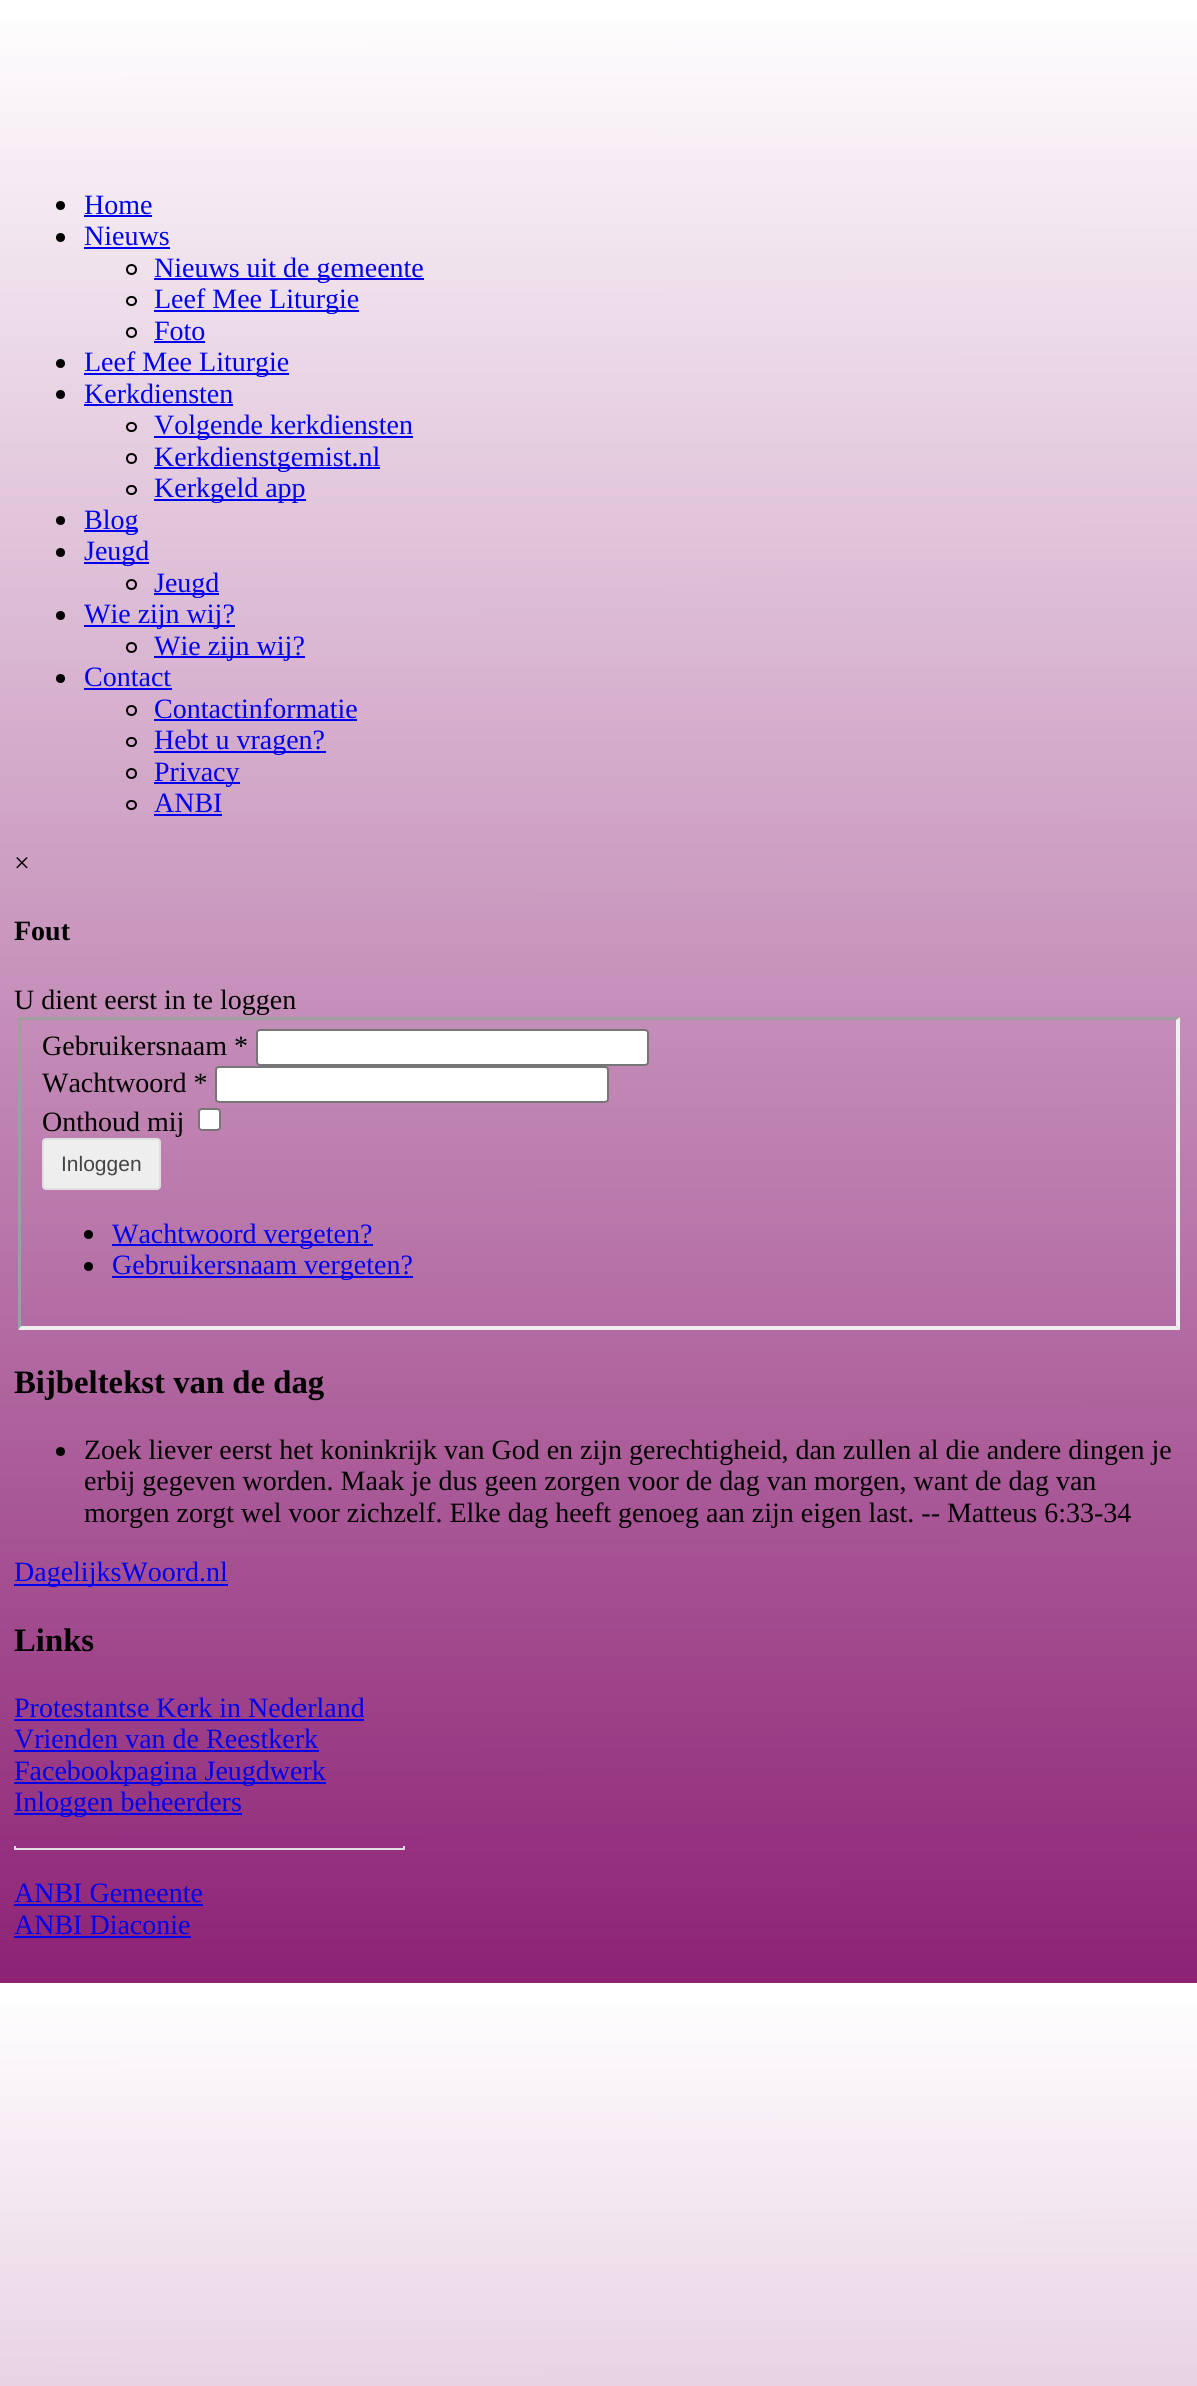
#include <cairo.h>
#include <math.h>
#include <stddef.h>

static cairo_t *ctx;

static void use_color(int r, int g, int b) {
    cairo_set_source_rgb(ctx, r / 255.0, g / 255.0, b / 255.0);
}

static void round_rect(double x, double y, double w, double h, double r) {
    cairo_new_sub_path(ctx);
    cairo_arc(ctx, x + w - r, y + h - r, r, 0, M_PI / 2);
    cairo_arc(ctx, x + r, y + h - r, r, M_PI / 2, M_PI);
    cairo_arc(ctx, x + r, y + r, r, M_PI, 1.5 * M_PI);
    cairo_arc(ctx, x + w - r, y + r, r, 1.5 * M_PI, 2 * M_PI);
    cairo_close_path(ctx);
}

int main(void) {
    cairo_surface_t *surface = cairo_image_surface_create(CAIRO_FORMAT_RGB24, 1197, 2386);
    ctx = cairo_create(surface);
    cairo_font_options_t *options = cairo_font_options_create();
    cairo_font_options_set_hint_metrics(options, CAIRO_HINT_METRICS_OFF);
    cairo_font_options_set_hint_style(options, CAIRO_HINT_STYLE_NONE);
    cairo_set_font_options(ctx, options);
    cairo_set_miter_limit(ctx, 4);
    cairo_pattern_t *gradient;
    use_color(255, 255, 255);
    cairo_paint(ctx);
    gradient = cairo_pattern_create_linear(598, 0, 599, 1983);
    cairo_pattern_add_color_stop_rgba(gradient, 0, 1, 1, 1, 1);
    cairo_pattern_add_color_stop_rgba(gradient, 1, 0.553, 0.133, 0.459, 1);
    cairo_set_source(ctx, gradient);
    cairo_pattern_destroy(gradient);
    cairo_rectangle(ctx, 0, 22, 1197, 1961);
    cairo_fill(ctx);
    gradient = cairo_pattern_create_linear(598, 1983, 599, 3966);
    cairo_pattern_add_color_stop_rgba(gradient, 0, 1, 1, 1, 1);
    cairo_pattern_add_color_stop_rgba(gradient, 1, 0.553, 0.133, 0.459, 1);
    cairo_set_source(ctx, gradient);
    cairo_pattern_destroy(gradient);
    cairo_rectangle(ctx, 0, 2005, 1197, 381);
    cairo_fill(ctx);
    use_color(0, 0, 0);
    cairo_arc(ctx, 60.5, 205.5, 4.5, 0, 2 * M_PI);
    cairo_fill(ctx);
    cairo_select_font_face(ctx, "Liberation Serif", CAIRO_FONT_SLANT_NORMAL, CAIRO_FONT_WEIGHT_NORMAL);
    cairo_set_font_size(ctx, 28);
    use_color(0, 0, 238);
    cairo_move_to(ctx, 84, 214);
    cairo_show_text(ctx, "Home");
    cairo_rectangle(ctx, 84, 215, 68, 2);
    cairo_fill(ctx);
    use_color(0, 0, 0);
    cairo_arc(ctx, 60.5, 237.5, 4.5, 0, 2 * M_PI);
    cairo_fill(ctx);
    use_color(0, 0, 238);
    cairo_move_to(ctx, 84, 245);
    cairo_show_text(ctx, "Nieuws");
    cairo_rectangle(ctx, 84, 247, 86, 2);
    cairo_fill(ctx);
    cairo_arc(ctx, 131.5, 269.5, 4.5, 0, 2 * M_PI);
    use_color(0, 0, 0);
    cairo_stroke(ctx);
    use_color(0, 0, 238);
    cairo_rectangle(ctx, 154, 278, 270, 2);
    cairo_fill(ctx);
    cairo_move_to(ctx, 154, 277);
    cairo_show_text(ctx, "Nieuws uit de gemeente");
    round_rect(127, 297, 9, 8, 4);
    use_color(0, 0, 0);
    cairo_stroke(ctx);
    use_color(0, 0, 238);
    cairo_rectangle(ctx, 154, 310, 205, 2);
    cairo_fill(ctx);
    cairo_move_to(ctx, 154, 308);
    cairo_show_text(ctx, "Leef Mee Liturgie");
    cairo_new_path(ctx);
    cairo_arc(ctx, 131.5, 332.5, 4.5, 0, 2 * M_PI);
    use_color(0, 0, 0);
    cairo_stroke(ctx);
    use_color(0, 0, 238);
    cairo_move_to(ctx, 154, 340);
    cairo_show_text(ctx, "Foto");
    cairo_rectangle(ctx, 154, 341, 51, 2);
    cairo_fill(ctx);
    use_color(0, 0, 0);
    cairo_arc(ctx, 60.5, 363.5, 4.5, 0, 2 * M_PI);
    cairo_fill(ctx);
    use_color(0, 0, 238);
    cairo_rectangle(ctx, 84, 373, 205, 2);
    cairo_fill(ctx);
    cairo_move_to(ctx, 84, 371);
    cairo_show_text(ctx, "Leef Mee Liturgie");
    use_color(0, 0, 0);
    cairo_new_path(ctx);
    cairo_arc(ctx, 60.5, 394.5, 4.5, 0, 2 * M_PI);
    cairo_fill(ctx);
    use_color(0, 0, 238);
    cairo_move_to(ctx, 84, 403);
    cairo_show_text(ctx, "Kerkdiensten");
    cairo_rectangle(ctx, 84, 404, 149, 2);
    cairo_fill(ctx);
    round_rect(127, 423, 9, 8, 4);
    use_color(0, 0, 0);
    cairo_stroke(ctx);
    use_color(0, 0, 238);
    cairo_rectangle(ctx, 154, 436, 259, 2);
    cairo_fill(ctx);
    cairo_move_to(ctx, 154, 434);
    cairo_show_text(ctx, "Volgende kerkdiensten");
    cairo_new_path(ctx);
    cairo_arc(ctx, 131.5, 458.5, 4.5, 0, 2 * M_PI);
    use_color(0, 0, 0);
    cairo_stroke(ctx);
    use_color(0, 0, 238);
    cairo_rectangle(ctx, 154, 467, 226, 2);
    cairo_fill(ctx);
    cairo_move_to(ctx, 154, 466);
    cairo_show_text(ctx, "Kerkdienstgemist.nl");
    round_rect(127, 486, 9, 8, 4);
    use_color(0, 0, 0);
    cairo_stroke(ctx);
    use_color(0, 0, 238);
    cairo_rectangle(ctx, 154, 499, 152, 2);
    cairo_fill(ctx);
    cairo_move_to(ctx, 154, 497);
    cairo_show_text(ctx, "Kerkgeld app");
    use_color(0, 0, 0);
    cairo_new_path(ctx);
    cairo_arc(ctx, 60.5, 520.5, 4.5, 0, 2 * M_PI);
    cairo_fill(ctx);
    use_color(0, 0, 238);
    cairo_rectangle(ctx, 84, 530, 54, 2);
    cairo_fill(ctx);
    cairo_move_to(ctx, 84, 529);
    cairo_show_text(ctx, "Blog");
    use_color(0, 0, 0);
    cairo_new_path(ctx);
    cairo_arc(ctx, 60.5, 552.5, 4.5, 0, 2 * M_PI);
    cairo_fill(ctx);
    use_color(0, 0, 238);
    cairo_rectangle(ctx, 84, 562, 65, 2);
    cairo_fill(ctx);
    cairo_move_to(ctx, 84, 560);
    cairo_show_text(ctx, "Jeugd");
    cairo_new_path(ctx);
    cairo_arc(ctx, 131.5, 584.5, 4.5, 0, 2 * M_PI);
    use_color(0, 0, 0);
    cairo_stroke(ctx);
    use_color(0, 0, 238);
    cairo_rectangle(ctx, 154, 593, 65, 2);
    cairo_fill(ctx);
    cairo_move_to(ctx, 154, 592);
    cairo_show_text(ctx, "Jeugd");
    use_color(0, 0, 0);
    cairo_new_path(ctx);
    cairo_arc(ctx, 60.5, 615.5, 4.5, 0, 2 * M_PI);
    cairo_fill(ctx);
    use_color(0, 0, 238);
    cairo_rectangle(ctx, 84, 625, 151, 2);
    cairo_fill(ctx);
    cairo_move_to(ctx, 84, 623);
    cairo_show_text(ctx, "Wie zijn wij?");
    cairo_new_path(ctx);
    cairo_arc(ctx, 131.5, 647.5, 4.5, 0, 2 * M_PI);
    use_color(0, 0, 0);
    cairo_stroke(ctx);
    use_color(0, 0, 238);
    cairo_rectangle(ctx, 154, 656, 151, 2);
    cairo_fill(ctx);
    cairo_move_to(ctx, 154, 655);
    cairo_show_text(ctx, "Wie zijn wij?");
    use_color(0, 0, 0);
    cairo_new_path(ctx);
    cairo_arc(ctx, 60.5, 678.5, 4.5, 0, 2 * M_PI);
    cairo_fill(ctx);
    use_color(0, 0, 238);
    cairo_move_to(ctx, 84, 686);
    cairo_show_text(ctx, "Contact");
    cairo_rectangle(ctx, 84, 688, 88, 2);
    cairo_fill(ctx);
    cairo_arc(ctx, 131.5, 710.5, 4.5, 0, 2 * M_PI);
    use_color(0, 0, 0);
    cairo_stroke(ctx);
    use_color(0, 0, 238);
    cairo_move_to(ctx, 154, 718);
    cairo_show_text(ctx, "Contactinformatie");
    cairo_rectangle(ctx, 154, 719, 203, 2);
    cairo_fill(ctx);
    round_rect(127, 738, 9, 8, 4);
    use_color(0, 0, 0);
    cairo_stroke(ctx);
    use_color(0, 0, 238);
    cairo_rectangle(ctx, 154, 751, 172, 2);
    cairo_fill(ctx);
    cairo_move_to(ctx, 154, 749);
    cairo_show_text(ctx, "Hebt u vragen?");
    cairo_new_path(ctx);
    cairo_arc(ctx, 131.5, 773.5, 4.5, 0, 2 * M_PI);
    use_color(0, 0, 0);
    cairo_stroke(ctx);
    use_color(0, 0, 238);
    cairo_rectangle(ctx, 154, 782, 86, 2);
    cairo_fill(ctx);
    cairo_move_to(ctx, 154, 781);
    cairo_show_text(ctx, "Privacy");
    round_rect(127, 801, 9, 8, 4);
    use_color(0, 0, 0);
    cairo_stroke(ctx);
    use_color(0, 0, 238);
    cairo_move_to(ctx, 154, 812);
    cairo_show_text(ctx, "ANBI");
    cairo_rectangle(ctx, 154, 814, 68, 2);
    cairo_fill(ctx);
    use_color(0, 0, 0);
    cairo_move_to(ctx, 14, 872);
    cairo_show_text(ctx, "×");
    cairo_select_font_face(ctx, "Liberation Serif", CAIRO_FONT_SLANT_NORMAL, CAIRO_FONT_WEIGHT_BOLD);
    cairo_move_to(ctx, 14, 940);
    cairo_show_text(ctx, "Fout");
    cairo_select_font_face(ctx, "Liberation Serif", CAIRO_FONT_SLANT_NORMAL, CAIRO_FONT_WEIGHT_NORMAL);
    cairo_move_to(ctx, 14, 1009);
    cairo_show_text(ctx, "U dient eerst in te loggen");
    use_color(159, 159, 159);
    cairo_new_path(ctx);
    cairo_move_to(ctx, 18, 1017);
    cairo_line_to(ctx, 1180, 1017);
    cairo_line_to(ctx, 1176, 1020);
    cairo_line_to(ctx, 21, 1020);
    cairo_close_path(ctx);
    cairo_fill(ctx);
    use_color(239, 239, 239);
    cairo_new_path(ctx);
    cairo_move_to(ctx, 1180, 1017);
    cairo_line_to(ctx, 1180, 1330);
    cairo_line_to(ctx, 1176, 1326);
    cairo_line_to(ctx, 1176, 1020);
    cairo_close_path(ctx);
    cairo_fill(ctx);
    cairo_new_path(ctx);
    cairo_move_to(ctx, 1180, 1330);
    cairo_line_to(ctx, 18, 1330);
    cairo_line_to(ctx, 21, 1326);
    cairo_line_to(ctx, 1176, 1326);
    cairo_close_path(ctx);
    cairo_fill(ctx);
    use_color(159, 159, 159);
    cairo_new_path(ctx);
    cairo_move_to(ctx, 18, 1330);
    cairo_line_to(ctx, 18, 1017);
    cairo_line_to(ctx, 21, 1020);
    cairo_line_to(ctx, 21, 1326);
    cairo_close_path(ctx);
    cairo_fill(ctx);
    use_color(0, 0, 0);
    cairo_move_to(ctx, 42, 1055);
    cairo_show_text(ctx, "Gebruikersnaam *");
    use_color(255, 255, 255);
    round_rect(257, 1030, 391, 35, 3);
    cairo_fill_preserve(ctx);
    use_color(118, 118, 118);
    cairo_stroke(ctx);
    use_color(0, 0, 0);
    cairo_move_to(ctx, 42, 1092);
    cairo_show_text(ctx, "Wachtwoord *");
    use_color(255, 255, 255);
    round_rect(216, 1067, 392, 35, 3);
    cairo_fill_preserve(ctx);
    use_color(118, 118, 118);
    cairo_stroke(ctx);
    use_color(0, 0, 0);
    cairo_move_to(ctx, 42, 1131);
    cairo_show_text(ctx, "Onthoud mij");
    use_color(255, 255, 255);
    round_rect(199, 1109, 21, 21, 3);
    cairo_fill_preserve(ctx);
    use_color(118, 118, 118);
    cairo_stroke(ctx);
    use_color(238, 238, 238);
    round_rect(43, 1139, 117, 50, 3);
    cairo_fill_preserve(ctx);
    use_color(224, 224, 224);
    cairo_stroke(ctx);
    cairo_select_font_face(ctx, "Liberation Sans", CAIRO_FONT_SLANT_NORMAL, CAIRO_FONT_WEIGHT_NORMAL);
    cairo_set_font_size(ctx, 21);
    use_color(68, 68, 68);
    cairo_move_to(ctx, 61, 1171);
    cairo_show_text(ctx, "Inloggen");
    use_color(0, 0, 0);
    cairo_new_path(ctx);
    cairo_arc(ctx, 88.5, 1234.5, 4.5, 0, 2 * M_PI);
    cairo_fill(ctx);
    use_color(0, 0, 238);
    cairo_rectangle(ctx, 112, 1244, 261, 2);
    cairo_fill(ctx);
    cairo_select_font_face(ctx, "Liberation Serif", CAIRO_FONT_SLANT_NORMAL, CAIRO_FONT_WEIGHT_NORMAL);
    cairo_set_font_size(ctx, 28);
    cairo_move_to(ctx, 112, 1243);
    cairo_show_text(ctx, "Wachtwoord vergeten?");
    use_color(0, 0, 0);
    cairo_new_path(ctx);
    cairo_arc(ctx, 88.5, 1266.5, 4.5, 0, 2 * M_PI);
    cairo_fill(ctx);
    use_color(0, 0, 238);
    cairo_rectangle(ctx, 112, 1276, 301, 2);
    cairo_fill(ctx);
    cairo_move_to(ctx, 112, 1274);
    cairo_show_text(ctx, "Gebruikersnaam vergeten?");
    cairo_select_font_face(ctx, "Liberation Serif", CAIRO_FONT_SLANT_NORMAL, CAIRO_FONT_WEIGHT_BOLD);
    cairo_set_font_size(ctx, 32.75);
    use_color(0, 0, 0);
    cairo_move_to(ctx, 14, 1393);
    cairo_show_text(ctx, "Bijbeltekst van de dag");
    cairo_new_path(ctx);
    cairo_arc(ctx, 60.5, 1451.5, 4.5, 0, 2 * M_PI);
    cairo_fill(ctx);
    cairo_select_font_face(ctx, "Liberation Serif", CAIRO_FONT_SLANT_NORMAL, CAIRO_FONT_WEIGHT_NORMAL);
    cairo_set_font_size(ctx, 28);
    cairo_move_to(ctx, 84, 1459);
    cairo_show_text(ctx, "Zoek liever eerst het koninkrijk van God en zijn gerechtigheid, dan zullen al die andere dingen je");
    cairo_move_to(ctx, 84, 1490);
    cairo_show_text(ctx, "erbij gegeven worden. Maak je dus geen zorgen voor de dag van morgen, want de dag van");
    cairo_move_to(ctx, 84, 1522);
    cairo_show_text(ctx, "morgen zorgt wel voor zichzelf. Elke dag heeft genoeg aan zijn eigen last. -- Matteus 6:33-34");
    use_color(0, 0, 238);
    cairo_rectangle(ctx, 14, 1584, 214, 2);
    cairo_fill(ctx);
    cairo_move_to(ctx, 14, 1581);
    cairo_show_text(ctx, "DagelijksWoord.nl");
    cairo_select_font_face(ctx, "Liberation Serif", CAIRO_FONT_SLANT_NORMAL, CAIRO_FONT_WEIGHT_BOLD);
    cairo_set_font_size(ctx, 32.75);
    use_color(0, 0, 0);
    cairo_move_to(ctx, 14, 1651);
    cairo_show_text(ctx, "Links");
    cairo_select_font_face(ctx, "Liberation Serif", CAIRO_FONT_SLANT_NORMAL, CAIRO_FONT_WEIGHT_NORMAL);
    cairo_set_font_size(ctx, 28);
    use_color(0, 0, 238);
    cairo_move_to(ctx, 14, 1717);
    cairo_show_text(ctx, "Protestantse Kerk in Nederland");
    cairo_rectangle(ctx, 14, 1719, 350, 2);
    cairo_fill(ctx);
    cairo_move_to(ctx, 14, 1748);
    cairo_show_text(ctx, "Vrienden van de Reestkerk");
    cairo_rectangle(ctx, 14, 1750, 305, 2);
    cairo_fill(ctx);
    cairo_rectangle(ctx, 14, 1782, 312, 2);
    cairo_fill(ctx);
    cairo_move_to(ctx, 14, 1780);
    cairo_show_text(ctx, "Facebookpagina Jeugdwerk");
    cairo_rectangle(ctx, 14, 1813, 228, 2);
    cairo_fill(ctx);
    cairo_move_to(ctx, 14, 1811);
    cairo_show_text(ctx, "Inloggen beheerders");
    use_color(223, 223, 223);
    cairo_rectangle(ctx, 403, 1846, 2, 4);
    cairo_fill(ctx);
    cairo_rectangle(ctx, 14, 1848, 390, 2);
    cairo_fill(ctx);
    cairo_rectangle(ctx, 14, 1846, 2, 4);
    cairo_fill(ctx);
    use_color(0, 0, 238);
    cairo_move_to(ctx, 14, 1902);
    cairo_show_text(ctx, "ANBI Gemeente");
    cairo_rectangle(ctx, 14, 1904, 189, 2);
    cairo_fill(ctx);
    cairo_move_to(ctx, 14, 1934);
    cairo_show_text(ctx, "ANBI Diaconie");
    cairo_rectangle(ctx, 14, 1936, 177, 2);
    cairo_fill(ctx);
    cairo_surface_write_to_png(surface, "result.png");
    cairo_font_options_destroy(options);
    cairo_destroy(ctx);
    cairo_surface_destroy(surface);
    return 0;
}
